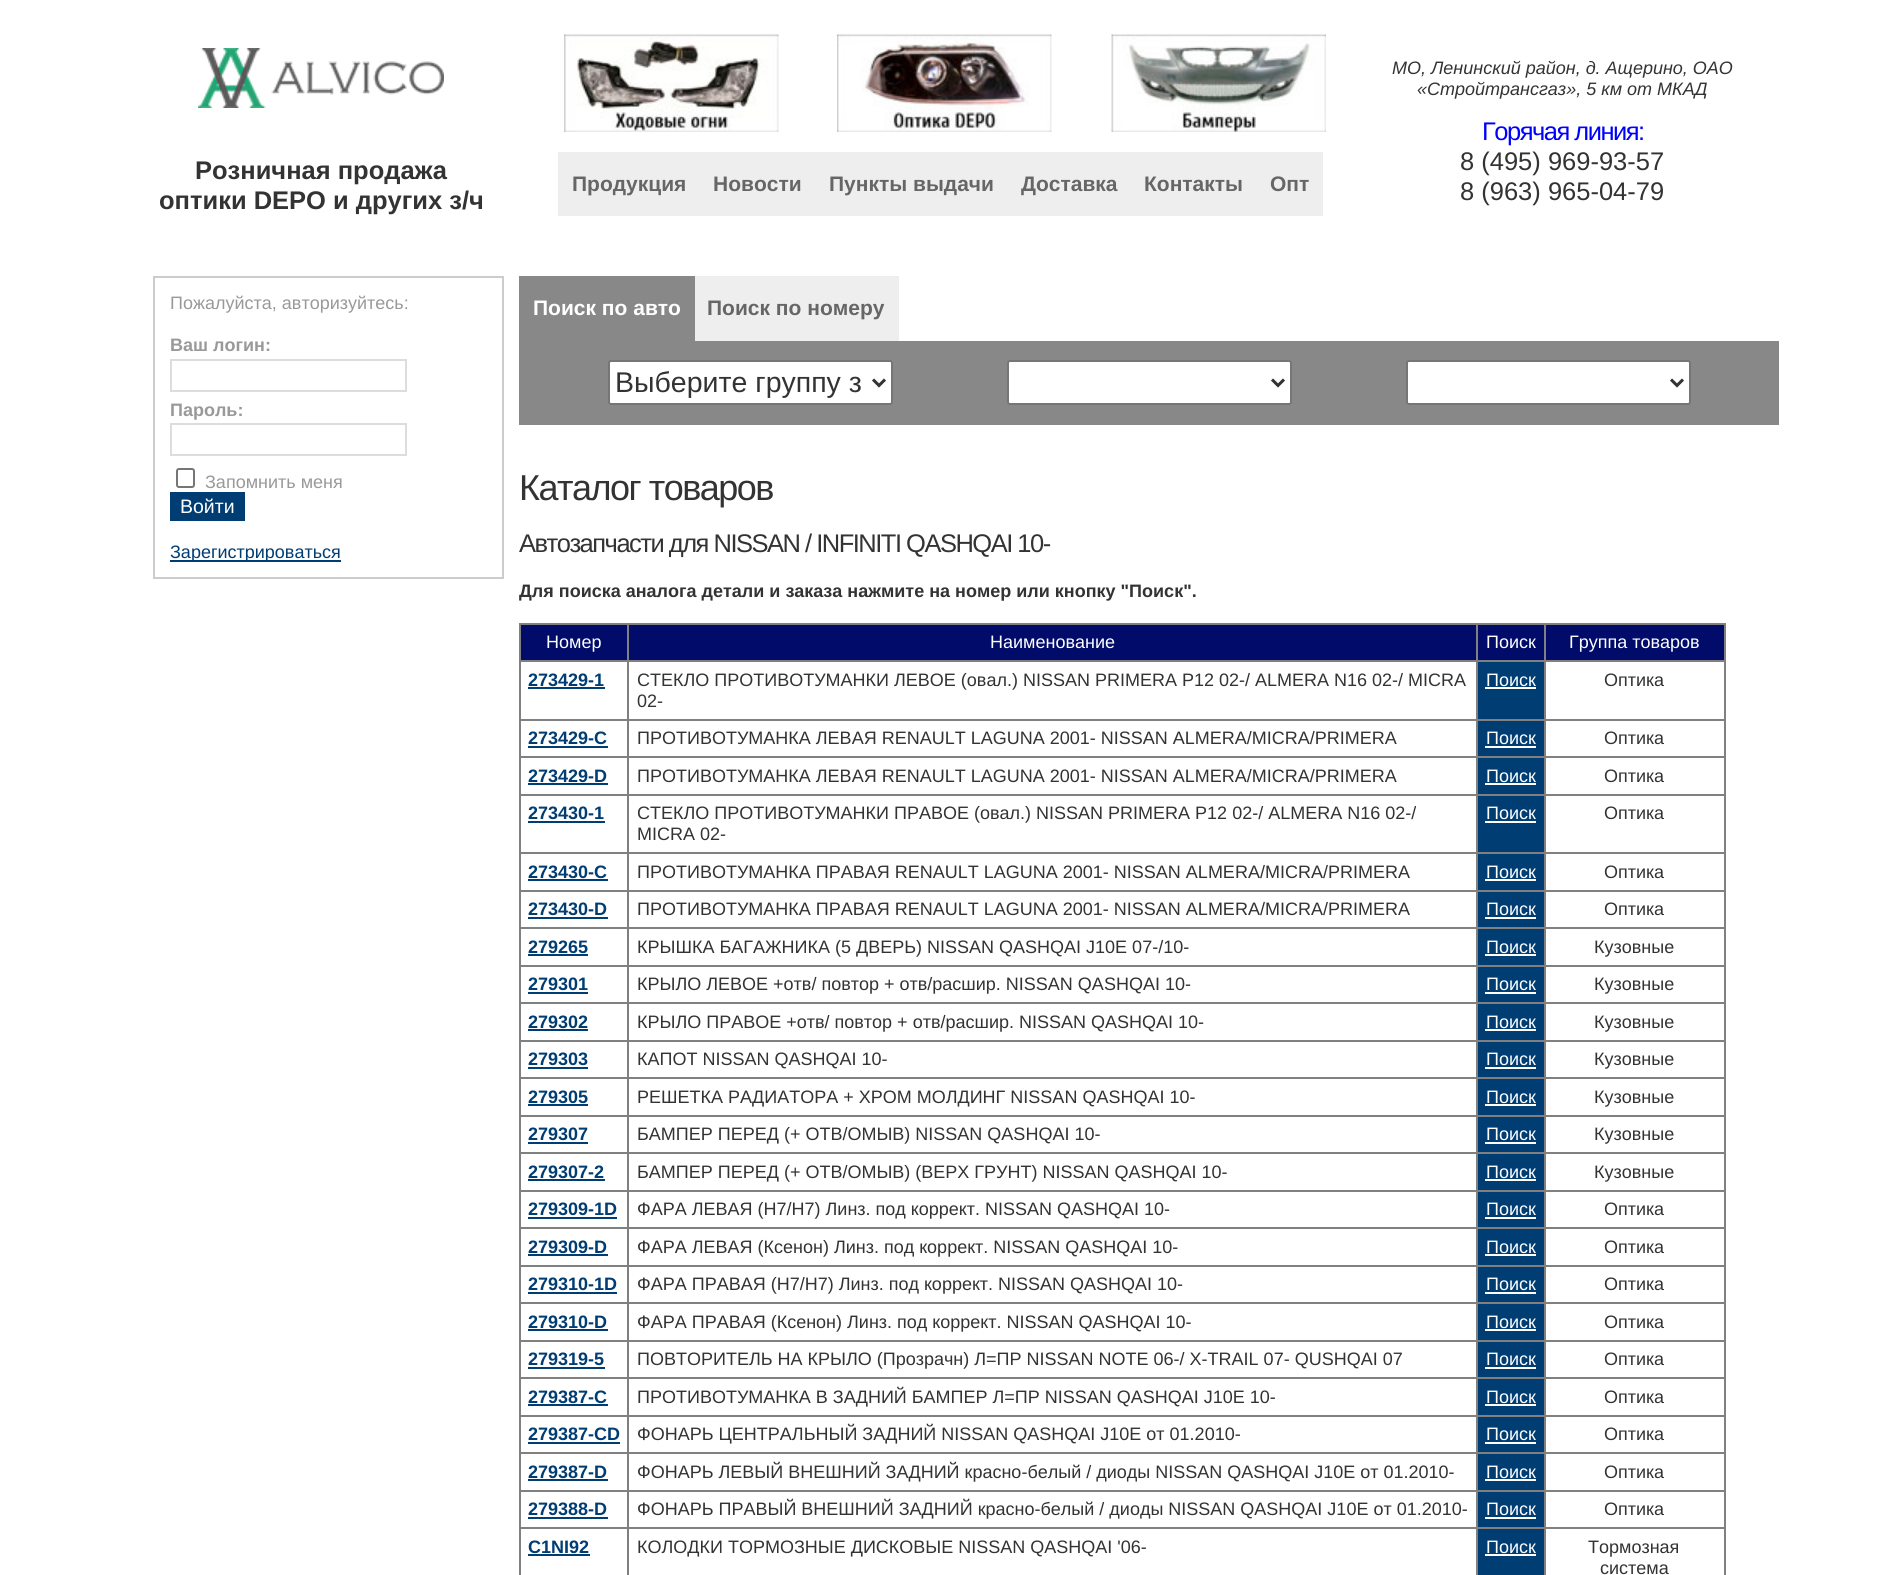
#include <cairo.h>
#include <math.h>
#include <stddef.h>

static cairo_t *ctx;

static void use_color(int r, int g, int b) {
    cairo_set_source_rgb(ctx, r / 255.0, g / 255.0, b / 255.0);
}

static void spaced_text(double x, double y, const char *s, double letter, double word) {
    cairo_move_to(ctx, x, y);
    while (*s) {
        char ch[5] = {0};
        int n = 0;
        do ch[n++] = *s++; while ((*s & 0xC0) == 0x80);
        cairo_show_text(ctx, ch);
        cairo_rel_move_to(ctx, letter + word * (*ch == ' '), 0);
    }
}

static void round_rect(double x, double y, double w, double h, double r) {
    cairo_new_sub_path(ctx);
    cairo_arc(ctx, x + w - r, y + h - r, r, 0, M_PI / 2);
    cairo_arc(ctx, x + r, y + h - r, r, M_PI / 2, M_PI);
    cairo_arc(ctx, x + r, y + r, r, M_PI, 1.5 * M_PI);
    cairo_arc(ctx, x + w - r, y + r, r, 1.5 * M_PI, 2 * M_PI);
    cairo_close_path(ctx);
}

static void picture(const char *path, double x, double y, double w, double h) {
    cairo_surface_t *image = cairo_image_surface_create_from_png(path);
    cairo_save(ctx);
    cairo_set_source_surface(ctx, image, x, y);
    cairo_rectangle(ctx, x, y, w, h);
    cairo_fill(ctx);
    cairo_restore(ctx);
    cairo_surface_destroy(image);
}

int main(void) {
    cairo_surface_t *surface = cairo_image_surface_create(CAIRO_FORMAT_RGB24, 1878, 1575);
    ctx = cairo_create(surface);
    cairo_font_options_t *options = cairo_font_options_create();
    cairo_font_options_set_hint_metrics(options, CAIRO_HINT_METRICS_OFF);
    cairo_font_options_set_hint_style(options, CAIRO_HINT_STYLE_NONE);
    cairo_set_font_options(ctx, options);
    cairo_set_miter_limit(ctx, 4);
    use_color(255, 255, 255);
    cairo_paint(ctx);
    picture("img1.png", 198, 48, 246, 60);
    cairo_select_font_face(ctx, "Liberation Sans", CAIRO_FONT_SLANT_NORMAL, CAIRO_FONT_WEIGHT_BOLD);
    cairo_set_font_size(ctx, 25.5);
    use_color(51, 51, 51);
    cairo_move_to(ctx, 195, 179);
    cairo_show_text(ctx, "Розничная продажа");
    cairo_move_to(ctx, 159, 209);
    cairo_show_text(ctx, "оптики DEPO и других з/ч");
    picture("img2.png", 564, 34, 215, 98);
    picture("img3.png", 837, 34, 215, 98);
    picture("img4.png", 1111, 34, 215, 98);
    use_color(238, 238, 238);
    cairo_rectangle(ctx, 558, 152, 765, 64);
    cairo_fill(ctx);
    cairo_set_font_size(ctx, 21);
    use_color(102, 102, 102);
    cairo_move_to(ctx, 572, 191);
    cairo_show_text(ctx, "Продукция");
    cairo_move_to(ctx, 713, 191);
    cairo_show_text(ctx, "Новости");
    cairo_move_to(ctx, 829, 191);
    cairo_show_text(ctx, "Пункты выдачи");
    cairo_move_to(ctx, 1021, 191);
    cairo_show_text(ctx, "Доставка");
    cairo_move_to(ctx, 1144, 191);
    cairo_show_text(ctx, "Контакты");
    cairo_move_to(ctx, 1270, 191);
    cairo_show_text(ctx, "Опт");
    cairo_select_font_face(ctx, "Liberation Sans", CAIRO_FONT_SLANT_ITALIC, CAIRO_FONT_WEIGHT_NORMAL);
    cairo_set_font_size(ctx, 18);
    use_color(51, 51, 51);
    cairo_move_to(ctx, 1392, 74);
    cairo_show_text(ctx, "МО, Ленинский район, д. Ащерино, ОАО");
    cairo_move_to(ctx, 1417, 95);
    cairo_show_text(ctx, "«Стройтрансгаз», 5 км от МКАД");
    cairo_select_font_face(ctx, "Liberation Sans", CAIRO_FONT_SLANT_NORMAL, CAIRO_FONT_WEIGHT_NORMAL);
    cairo_set_font_size(ctx, 25.5);
    use_color(0, 0, 255);
    spaced_text(1482, 140, "Горячая линия:", -1.5, 0);
    use_color(51, 51, 51);
    cairo_move_to(ctx, 1460, 170);
    cairo_show_text(ctx, "8 (495) 969-93-57");
    cairo_move_to(ctx, 1460, 200);
    cairo_show_text(ctx, "8 (963) 965-04-79");
    cairo_rectangle(ctx, 154, 277, 349, 301);
    use_color(204, 204, 204);
    cairo_stroke(ctx);
    cairo_set_font_size(ctx, 18);
    use_color(153, 153, 153);
    cairo_move_to(ctx, 170, 309);
    cairo_show_text(ctx, "Пожалуйста, авторизуйтесь:");
    cairo_select_font_face(ctx, "Liberation Sans", CAIRO_FONT_SLANT_NORMAL, CAIRO_FONT_WEIGHT_BOLD);
    cairo_move_to(ctx, 170, 351);
    cairo_show_text(ctx, "Ваш логин:");
    cairo_rectangle(ctx, 171, 360, 235, 31);
    use_color(221, 221, 221);
    cairo_stroke(ctx);
    use_color(153, 153, 153);
    cairo_move_to(ctx, 170, 416);
    cairo_show_text(ctx, "Пароль:");
    cairo_rectangle(ctx, 171, 424, 235, 31);
    use_color(221, 221, 221);
    cairo_stroke(ctx);
    round_rect(177, 469, 17, 18, 2);
    use_color(118, 118, 118);
    cairo_stroke(ctx);
    cairo_select_font_face(ctx, "Liberation Sans", CAIRO_FONT_SLANT_NORMAL, CAIRO_FONT_WEIGHT_NORMAL);
    use_color(153, 153, 153);
    cairo_move_to(ctx, 205, 488);
    cairo_show_text(ctx, "Запомнить меня");
    use_color(0, 61, 115);
    cairo_rectangle(ctx, 170, 492, 75, 29);
    cairo_fill(ctx);
    cairo_set_font_size(ctx, 19.5);
    use_color(255, 255, 255);
    cairo_move_to(ctx, 180, 513);
    cairo_show_text(ctx, "Войти");
    use_color(0, 61, 115);
    cairo_rectangle(ctx, 170, 560, 171, 2);
    cairo_fill(ctx);
    cairo_set_font_size(ctx, 18);
    cairo_move_to(ctx, 170, 558);
    cairo_show_text(ctx, "Зарегистрироваться");
    use_color(136, 136, 136);
    cairo_rectangle(ctx, 519, 276, 176, 65);
    cairo_fill(ctx);
    cairo_select_font_face(ctx, "Liberation Sans", CAIRO_FONT_SLANT_NORMAL, CAIRO_FONT_WEIGHT_BOLD);
    cairo_set_font_size(ctx, 21);
    use_color(255, 255, 255);
    cairo_move_to(ctx, 533, 315);
    cairo_show_text(ctx, "Поиск по авто");
    use_color(238, 238, 238);
    cairo_rectangle(ctx, 695, 276, 204, 65);
    cairo_fill(ctx);
    use_color(102, 102, 102);
    cairo_move_to(ctx, 707, 315);
    cairo_show_text(ctx, "Поиск по номеру");
    use_color(136, 136, 136);
    cairo_rectangle(ctx, 519, 341, 1260, 84);
    cairo_fill(ctx);
    use_color(255, 255, 255);
    round_rect(609, 361, 283, 43, 2);
    cairo_fill_preserve(ctx);
    use_color(118, 118, 118);
    cairo_stroke(ctx);
    cairo_new_path(ctx);
    cairo_move_to(ctx, 873, 379.5);
    cairo_line_to(ctx, 879, 385.5);
    cairo_line_to(ctx, 885, 379.5);
    use_color(51, 51, 51);
    cairo_set_line_width(ctx, 3);
    cairo_stroke(ctx);
    cairo_select_font_face(ctx, "Liberation Sans", CAIRO_FONT_SLANT_NORMAL, CAIRO_FONT_WEIGHT_NORMAL);
    cairo_set_font_size(ctx, 28.5);
    cairo_move_to(ctx, 615, 392);
    cairo_show_text(ctx, "Выберите группу з");
    use_color(255, 255, 255);
    round_rect(1008, 361, 283, 43, 2);
    cairo_fill_preserve(ctx);
    use_color(118, 118, 118);
    cairo_set_line_width(ctx, 2);
    cairo_stroke(ctx);
    cairo_new_path(ctx);
    cairo_move_to(ctx, 1272, 379.5);
    cairo_line_to(ctx, 1278, 385.5);
    cairo_line_to(ctx, 1284, 379.5);
    use_color(51, 51, 51);
    cairo_set_line_width(ctx, 3);
    cairo_stroke(ctx);
    use_color(255, 255, 255);
    round_rect(1407, 361, 283, 43, 2);
    cairo_fill_preserve(ctx);
    use_color(118, 118, 118);
    cairo_set_line_width(ctx, 2);
    cairo_stroke(ctx);
    cairo_new_path(ctx);
    cairo_move_to(ctx, 1671, 379.5);
    cairo_line_to(ctx, 1677, 385.5);
    cairo_line_to(ctx, 1683, 379.5);
    use_color(51, 51, 51);
    cairo_set_line_width(ctx, 3);
    cairo_stroke(ctx);
    cairo_set_font_size(ctx, 36);
    spaced_text(519, 500, "Каталог товаров", -1.5, 0);
    cairo_set_font_size(ctx, 25.5);
    spaced_text(519, 552, "Автозапчасти для NISSAN / INFINITI QASHQAI 10-", -1.5, 0);
    cairo_select_font_face(ctx, "Liberation Sans", CAIRO_FONT_SLANT_NORMAL, CAIRO_FONT_WEIGHT_BOLD);
    cairo_set_font_size(ctx, 18);
    cairo_move_to(ctx, 519, 597);
    cairo_show_text(ctx, "Для поиска аналога детали и заказа нажмите на номер или кнопку \"Поиск\".");
    use_color(128, 128, 128);
    cairo_rectangle(ctx, 519, 623, 1206, 2);
    cairo_fill(ctx);
    cairo_rectangle(ctx, 1724, 623, 2, 952);
    cairo_fill(ctx);
    cairo_rectangle(ctx, 519, 623, 2, 952);
    cairo_fill(ctx);
    use_color(1, 11, 106);
    cairo_rectangle(ctx, 521, 625, 1203, 35);
    cairo_fill(ctx);
    cairo_select_font_face(ctx, "Liberation Sans", CAIRO_FONT_SLANT_NORMAL, CAIRO_FONT_WEIGHT_NORMAL);
    use_color(255, 255, 255);
    cairo_move_to(ctx, 546, 648);
    cairo_show_text(ctx, "Номер");
    use_color(128, 128, 128);
    cairo_rectangle(ctx, 1544, 660, 181, 2);
    cairo_fill(ctx);
    cairo_rectangle(ctx, 1544, 719, 181, 2);
    cairo_fill(ctx);
    cairo_rectangle(ctx, 1544, 756, 181, 2);
    cairo_fill(ctx);
    cairo_rectangle(ctx, 1544, 794, 181, 2);
    cairo_fill(ctx);
    cairo_rectangle(ctx, 1544, 852, 181, 2);
    cairo_fill(ctx);
    cairo_rectangle(ctx, 1544, 890, 181, 2);
    cairo_fill(ctx);
    cairo_rectangle(ctx, 1544, 927, 181, 2);
    cairo_fill(ctx);
    cairo_rectangle(ctx, 1544, 965, 181, 2);
    cairo_fill(ctx);
    cairo_rectangle(ctx, 1544, 1002, 181, 2);
    cairo_fill(ctx);
    cairo_rectangle(ctx, 1544, 1040, 181, 2);
    cairo_fill(ctx);
    cairo_rectangle(ctx, 1544, 1077, 181, 2);
    cairo_fill(ctx);
    cairo_rectangle(ctx, 1544, 1115, 181, 2);
    cairo_fill(ctx);
    cairo_rectangle(ctx, 1544, 1152, 181, 2);
    cairo_fill(ctx);
    cairo_rectangle(ctx, 1544, 1190, 181, 2);
    cairo_fill(ctx);
    cairo_rectangle(ctx, 1544, 1227, 181, 2);
    cairo_fill(ctx);
    cairo_rectangle(ctx, 1544, 1265, 181, 2);
    cairo_fill(ctx);
    cairo_rectangle(ctx, 1544, 1302, 181, 2);
    cairo_fill(ctx);
    cairo_rectangle(ctx, 1544, 1340, 181, 2);
    cairo_fill(ctx);
    cairo_rectangle(ctx, 1544, 1377, 181, 2);
    cairo_fill(ctx);
    cairo_rectangle(ctx, 1544, 1415, 181, 2);
    cairo_fill(ctx);
    cairo_rectangle(ctx, 1544, 1452, 181, 2);
    cairo_fill(ctx);
    cairo_rectangle(ctx, 1544, 1490, 181, 2);
    cairo_fill(ctx);
    cairo_rectangle(ctx, 1544, 1527, 181, 2);
    cairo_fill(ctx);
    cairo_rectangle(ctx, 1544, 1527, 2, 48);
    cairo_fill(ctx);
    cairo_rectangle(ctx, 1476, 1527, 69, 2);
    cairo_fill(ctx);
    cairo_rectangle(ctx, 1544, 1490, 2, 39);
    cairo_fill(ctx);
    cairo_rectangle(ctx, 1476, 1490, 69, 2);
    cairo_fill(ctx);
    cairo_rectangle(ctx, 1544, 1452, 2, 39);
    cairo_fill(ctx);
    cairo_rectangle(ctx, 1476, 1452, 69, 2);
    cairo_fill(ctx);
    cairo_rectangle(ctx, 1544, 1415, 2, 39);
    cairo_fill(ctx);
    cairo_rectangle(ctx, 1476, 1415, 69, 2);
    cairo_fill(ctx);
    cairo_rectangle(ctx, 1544, 1377, 2, 39);
    cairo_fill(ctx);
    cairo_rectangle(ctx, 1476, 1377, 69, 2);
    cairo_fill(ctx);
    cairo_rectangle(ctx, 1544, 1340, 2, 39);
    cairo_fill(ctx);
    cairo_rectangle(ctx, 1476, 1340, 69, 2);
    cairo_fill(ctx);
    cairo_rectangle(ctx, 1544, 1302, 2, 39);
    cairo_fill(ctx);
    cairo_rectangle(ctx, 1476, 1302, 69, 2);
    cairo_fill(ctx);
    cairo_rectangle(ctx, 1544, 1265, 2, 39);
    cairo_fill(ctx);
    cairo_rectangle(ctx, 1476, 1265, 69, 2);
    cairo_fill(ctx);
    cairo_rectangle(ctx, 1544, 1227, 2, 39);
    cairo_fill(ctx);
    cairo_rectangle(ctx, 1476, 1227, 69, 2);
    cairo_fill(ctx);
    cairo_rectangle(ctx, 1544, 1190, 2, 39);
    cairo_fill(ctx);
    cairo_rectangle(ctx, 1476, 1190, 69, 2);
    cairo_fill(ctx);
    cairo_rectangle(ctx, 1544, 1152, 2, 39);
    cairo_fill(ctx);
    cairo_rectangle(ctx, 1476, 1152, 69, 2);
    cairo_fill(ctx);
    cairo_rectangle(ctx, 1544, 1115, 2, 39);
    cairo_fill(ctx);
    cairo_rectangle(ctx, 1476, 1115, 69, 2);
    cairo_fill(ctx);
    cairo_rectangle(ctx, 1544, 1077, 2, 39);
    cairo_fill(ctx);
    cairo_rectangle(ctx, 1476, 1077, 69, 2);
    cairo_fill(ctx);
    cairo_rectangle(ctx, 1544, 1040, 2, 39);
    cairo_fill(ctx);
    cairo_rectangle(ctx, 1476, 1040, 69, 2);
    cairo_fill(ctx);
    cairo_rectangle(ctx, 1544, 1002, 2, 39);
    cairo_fill(ctx);
    cairo_rectangle(ctx, 1476, 1002, 69, 2);
    cairo_fill(ctx);
    cairo_rectangle(ctx, 1544, 965, 2, 39);
    cairo_fill(ctx);
    cairo_rectangle(ctx, 1476, 965, 69, 2);
    cairo_fill(ctx);
    cairo_rectangle(ctx, 1544, 927, 2, 39);
    cairo_fill(ctx);
    cairo_rectangle(ctx, 1476, 927, 69, 2);
    cairo_fill(ctx);
    cairo_rectangle(ctx, 1544, 890, 2, 39);
    cairo_fill(ctx);
    cairo_rectangle(ctx, 1476, 890, 69, 2);
    cairo_fill(ctx);
    cairo_rectangle(ctx, 1544, 852, 2, 39);
    cairo_fill(ctx);
    cairo_rectangle(ctx, 1476, 852, 69, 2);
    cairo_fill(ctx);
    cairo_rectangle(ctx, 1544, 794, 2, 60);
    cairo_fill(ctx);
    cairo_rectangle(ctx, 1476, 794, 69, 2);
    cairo_fill(ctx);
    cairo_rectangle(ctx, 1544, 756, 2, 39);
    cairo_fill(ctx);
    cairo_rectangle(ctx, 1476, 756, 69, 2);
    cairo_fill(ctx);
    cairo_rectangle(ctx, 1544, 719, 2, 39);
    cairo_fill(ctx);
    cairo_rectangle(ctx, 1476, 719, 69, 2);
    cairo_fill(ctx);
    cairo_rectangle(ctx, 1544, 660, 2, 60);
    cairo_fill(ctx);
    cairo_rectangle(ctx, 1476, 660, 69, 2);
    cairo_fill(ctx);
    cairo_rectangle(ctx, 1476, 1527, 2, 48);
    cairo_fill(ctx);
    cairo_rectangle(ctx, 627, 1527, 851, 2);
    cairo_fill(ctx);
    cairo_rectangle(ctx, 1476, 1490, 2, 39);
    cairo_fill(ctx);
    cairo_rectangle(ctx, 627, 1490, 851, 2);
    cairo_fill(ctx);
    cairo_rectangle(ctx, 1476, 1452, 2, 39);
    cairo_fill(ctx);
    cairo_rectangle(ctx, 627, 1452, 851, 2);
    cairo_fill(ctx);
    cairo_rectangle(ctx, 1476, 1415, 2, 39);
    cairo_fill(ctx);
    cairo_rectangle(ctx, 627, 1415, 851, 2);
    cairo_fill(ctx);
    cairo_rectangle(ctx, 1476, 1377, 2, 39);
    cairo_fill(ctx);
    cairo_rectangle(ctx, 627, 1377, 851, 2);
    cairo_fill(ctx);
    cairo_rectangle(ctx, 1476, 1340, 2, 39);
    cairo_fill(ctx);
    cairo_rectangle(ctx, 627, 1340, 851, 2);
    cairo_fill(ctx);
    cairo_rectangle(ctx, 1476, 1302, 2, 39);
    cairo_fill(ctx);
    cairo_rectangle(ctx, 627, 1302, 851, 2);
    cairo_fill(ctx);
    cairo_rectangle(ctx, 1476, 1265, 2, 39);
    cairo_fill(ctx);
    cairo_rectangle(ctx, 627, 1265, 851, 2);
    cairo_fill(ctx);
    cairo_rectangle(ctx, 1476, 1227, 2, 39);
    cairo_fill(ctx);
    cairo_rectangle(ctx, 627, 1227, 851, 2);
    cairo_fill(ctx);
    cairo_rectangle(ctx, 1476, 1190, 2, 39);
    cairo_fill(ctx);
    cairo_rectangle(ctx, 627, 1190, 851, 2);
    cairo_fill(ctx);
    cairo_rectangle(ctx, 1476, 1152, 2, 39);
    cairo_fill(ctx);
    cairo_rectangle(ctx, 627, 1152, 851, 2);
    cairo_fill(ctx);
    cairo_rectangle(ctx, 1476, 1115, 2, 39);
    cairo_fill(ctx);
    cairo_rectangle(ctx, 627, 1115, 851, 2);
    cairo_fill(ctx);
    cairo_rectangle(ctx, 1476, 1077, 2, 39);
    cairo_fill(ctx);
    cairo_rectangle(ctx, 627, 1077, 851, 2);
    cairo_fill(ctx);
    cairo_rectangle(ctx, 1476, 1040, 2, 39);
    cairo_fill(ctx);
    cairo_rectangle(ctx, 627, 1040, 851, 2);
    cairo_fill(ctx);
    cairo_rectangle(ctx, 1476, 1002, 2, 39);
    cairo_fill(ctx);
    cairo_rectangle(ctx, 627, 1002, 851, 2);
    cairo_fill(ctx);
    cairo_rectangle(ctx, 1476, 965, 2, 39);
    cairo_fill(ctx);
    cairo_rectangle(ctx, 627, 965, 851, 2);
    cairo_fill(ctx);
    cairo_rectangle(ctx, 1476, 927, 2, 39);
    cairo_fill(ctx);
    cairo_rectangle(ctx, 627, 927, 851, 2);
    cairo_fill(ctx);
    cairo_rectangle(ctx, 1476, 890, 2, 39);
    cairo_fill(ctx);
    cairo_rectangle(ctx, 627, 890, 851, 2);
    cairo_fill(ctx);
    cairo_rectangle(ctx, 1476, 852, 2, 39);
    cairo_fill(ctx);
    cairo_rectangle(ctx, 627, 852, 851, 2);
    cairo_fill(ctx);
    cairo_rectangle(ctx, 1476, 794, 2, 60);
    cairo_fill(ctx);
    cairo_rectangle(ctx, 627, 794, 851, 2);
    cairo_fill(ctx);
    cairo_rectangle(ctx, 1476, 756, 2, 39);
    cairo_fill(ctx);
    cairo_rectangle(ctx, 627, 756, 851, 2);
    cairo_fill(ctx);
    cairo_rectangle(ctx, 1476, 719, 2, 39);
    cairo_fill(ctx);
    cairo_rectangle(ctx, 627, 719, 851, 2);
    cairo_fill(ctx);
    cairo_rectangle(ctx, 1476, 660, 2, 60);
    cairo_fill(ctx);
    cairo_rectangle(ctx, 627, 660, 851, 2);
    cairo_fill(ctx);
    cairo_rectangle(ctx, 627, 1527, 2, 48);
    cairo_fill(ctx);
    cairo_rectangle(ctx, 519, 1527, 110, 2);
    cairo_fill(ctx);
    cairo_rectangle(ctx, 627, 1490, 2, 39);
    cairo_fill(ctx);
    cairo_rectangle(ctx, 519, 1490, 110, 2);
    cairo_fill(ctx);
    cairo_rectangle(ctx, 627, 1452, 2, 39);
    cairo_fill(ctx);
    cairo_rectangle(ctx, 519, 1452, 110, 2);
    cairo_fill(ctx);
    cairo_rectangle(ctx, 627, 1415, 2, 39);
    cairo_fill(ctx);
    cairo_rectangle(ctx, 519, 1415, 110, 2);
    cairo_fill(ctx);
    cairo_rectangle(ctx, 627, 1377, 2, 39);
    cairo_fill(ctx);
    cairo_rectangle(ctx, 519, 1377, 110, 2);
    cairo_fill(ctx);
    cairo_rectangle(ctx, 627, 1340, 2, 39);
    cairo_fill(ctx);
    cairo_rectangle(ctx, 519, 1340, 110, 2);
    cairo_fill(ctx);
    cairo_rectangle(ctx, 627, 1302, 2, 39);
    cairo_fill(ctx);
    cairo_rectangle(ctx, 519, 1302, 110, 2);
    cairo_fill(ctx);
    cairo_rectangle(ctx, 627, 1265, 2, 39);
    cairo_fill(ctx);
    cairo_rectangle(ctx, 519, 1265, 110, 2);
    cairo_fill(ctx);
    cairo_rectangle(ctx, 627, 1227, 2, 39);
    cairo_fill(ctx);
    cairo_rectangle(ctx, 519, 1227, 110, 2);
    cairo_fill(ctx);
    cairo_rectangle(ctx, 627, 1190, 2, 39);
    cairo_fill(ctx);
    cairo_rectangle(ctx, 519, 1190, 110, 2);
    cairo_fill(ctx);
    cairo_rectangle(ctx, 627, 1152, 2, 39);
    cairo_fill(ctx);
    cairo_rectangle(ctx, 519, 1152, 110, 2);
    cairo_fill(ctx);
    cairo_rectangle(ctx, 627, 1115, 2, 39);
    cairo_fill(ctx);
    cairo_rectangle(ctx, 519, 1115, 110, 2);
    cairo_fill(ctx);
    cairo_rectangle(ctx, 627, 1077, 2, 39);
    cairo_fill(ctx);
    cairo_rectangle(ctx, 519, 1077, 110, 2);
    cairo_fill(ctx);
    cairo_rectangle(ctx, 627, 1040, 2, 39);
    cairo_fill(ctx);
    cairo_rectangle(ctx, 519, 1040, 110, 2);
    cairo_fill(ctx);
    cairo_rectangle(ctx, 627, 1002, 2, 39);
    cairo_fill(ctx);
    cairo_rectangle(ctx, 519, 1002, 110, 2);
    cairo_fill(ctx);
    cairo_rectangle(ctx, 627, 965, 2, 39);
    cairo_fill(ctx);
    cairo_rectangle(ctx, 519, 965, 110, 2);
    cairo_fill(ctx);
    cairo_rectangle(ctx, 627, 927, 2, 39);
    cairo_fill(ctx);
    cairo_rectangle(ctx, 519, 927, 110, 2);
    cairo_fill(ctx);
    cairo_rectangle(ctx, 627, 890, 2, 39);
    cairo_fill(ctx);
    cairo_rectangle(ctx, 519, 890, 110, 2);
    cairo_fill(ctx);
    cairo_rectangle(ctx, 627, 852, 2, 39);
    cairo_fill(ctx);
    cairo_rectangle(ctx, 519, 852, 110, 2);
    cairo_fill(ctx);
    cairo_rectangle(ctx, 627, 794, 2, 60);
    cairo_fill(ctx);
    cairo_rectangle(ctx, 519, 794, 110, 2);
    cairo_fill(ctx);
    cairo_rectangle(ctx, 627, 756, 2, 39);
    cairo_fill(ctx);
    cairo_rectangle(ctx, 519, 756, 110, 2);
    cairo_fill(ctx);
    cairo_rectangle(ctx, 627, 719, 2, 39);
    cairo_fill(ctx);
    cairo_rectangle(ctx, 519, 719, 110, 2);
    cairo_fill(ctx);
    cairo_rectangle(ctx, 627, 660, 2, 60);
    cairo_fill(ctx);
    cairo_rectangle(ctx, 519, 660, 110, 2);
    cairo_fill(ctx);
    cairo_rectangle(ctx, 627, 623, 2, 39);
    cairo_fill(ctx);
    use_color(255, 255, 255);
    cairo_move_to(ctx, 990, 648);
    cairo_show_text(ctx, "Наименование");
    use_color(128, 128, 128);
    cairo_rectangle(ctx, 1476, 623, 2, 39);
    cairo_fill(ctx);
    use_color(255, 255, 255);
    cairo_move_to(ctx, 1486, 648);
    cairo_show_text(ctx, "Поиск");
    use_color(128, 128, 128);
    cairo_rectangle(ctx, 1544, 623, 2, 39);
    cairo_fill(ctx);
    use_color(255, 255, 255);
    cairo_move_to(ctx, 1569, 648);
    cairo_show_text(ctx, "Группа товаров");
    cairo_select_font_face(ctx, "Liberation Sans", CAIRO_FONT_SLANT_NORMAL, CAIRO_FONT_WEIGHT_BOLD);
    use_color(0, 61, 115);
    cairo_move_to(ctx, 528, 686);
    cairo_show_text(ctx, "273429-1");
    cairo_rectangle(ctx, 528, 687, 77, 2);
    cairo_fill(ctx);
    cairo_select_font_face(ctx, "Liberation Sans", CAIRO_FONT_SLANT_NORMAL, CAIRO_FONT_WEIGHT_NORMAL);
    use_color(51, 51, 51);
    cairo_move_to(ctx, 637, 686);
    cairo_show_text(ctx, "СТЕКЛО ПРОТИВОТУМАНКИ ЛЕВОЕ (овал.) NISSAN PRIMERA P12 02-/ ALMERA N16 02-/ MICRA");
    cairo_move_to(ctx, 637, 707);
    cairo_show_text(ctx, "02-");
    use_color(0, 61, 115);
    cairo_rectangle(ctx, 1478, 662, 66, 57);
    cairo_fill(ctx);
    use_color(255, 255, 255);
    cairo_move_to(ctx, 1486, 686);
    cairo_show_text(ctx, "Поиск");
    cairo_rectangle(ctx, 1485, 687, 51, 2);
    cairo_fill(ctx);
    use_color(51, 51, 51);
    cairo_move_to(ctx, 1604, 686);
    cairo_show_text(ctx, "Оптика");
    cairo_select_font_face(ctx, "Liberation Sans", CAIRO_FONT_SLANT_NORMAL, CAIRO_FONT_WEIGHT_BOLD);
    use_color(0, 61, 115);
    cairo_move_to(ctx, 528, 744);
    cairo_show_text(ctx, "273429-C");
    cairo_rectangle(ctx, 528, 746, 80, 2);
    cairo_fill(ctx);
    cairo_select_font_face(ctx, "Liberation Sans", CAIRO_FONT_SLANT_NORMAL, CAIRO_FONT_WEIGHT_NORMAL);
    use_color(51, 51, 51);
    cairo_move_to(ctx, 637, 744);
    cairo_show_text(ctx, "ПРОТИВОТУМАНКА ЛЕВАЯ RENAULT LAGUNA 2001- NISSAN ALMERA/MICRA/PRIMERA");
    use_color(0, 61, 115);
    cairo_rectangle(ctx, 1478, 721, 66, 35);
    cairo_fill(ctx);
    use_color(255, 255, 255);
    cairo_move_to(ctx, 1486, 744);
    cairo_show_text(ctx, "Поиск");
    cairo_rectangle(ctx, 1485, 746, 51, 2);
    cairo_fill(ctx);
    use_color(51, 51, 51);
    cairo_move_to(ctx, 1604, 744);
    cairo_show_text(ctx, "Оптика");
    cairo_select_font_face(ctx, "Liberation Sans", CAIRO_FONT_SLANT_NORMAL, CAIRO_FONT_WEIGHT_BOLD);
    use_color(0, 61, 115);
    cairo_move_to(ctx, 528, 782);
    cairo_show_text(ctx, "273429-D");
    cairo_rectangle(ctx, 528, 783, 80, 2);
    cairo_fill(ctx);
    cairo_select_font_face(ctx, "Liberation Sans", CAIRO_FONT_SLANT_NORMAL, CAIRO_FONT_WEIGHT_NORMAL);
    use_color(51, 51, 51);
    cairo_move_to(ctx, 637, 782);
    cairo_show_text(ctx, "ПРОТИВОТУМАНКА ЛЕВАЯ RENAULT LAGUNA 2001- NISSAN ALMERA/MICRA/PRIMERA");
    use_color(0, 61, 115);
    cairo_rectangle(ctx, 1478, 758, 66, 36);
    cairo_fill(ctx);
    use_color(255, 255, 255);
    cairo_move_to(ctx, 1486, 782);
    cairo_show_text(ctx, "Поиск");
    cairo_rectangle(ctx, 1485, 783, 51, 2);
    cairo_fill(ctx);
    use_color(51, 51, 51);
    cairo_move_to(ctx, 1604, 782);
    cairo_show_text(ctx, "Оптика");
    cairo_select_font_face(ctx, "Liberation Sans", CAIRO_FONT_SLANT_NORMAL, CAIRO_FONT_WEIGHT_BOLD);
    use_color(0, 61, 115);
    cairo_move_to(ctx, 528, 819);
    cairo_show_text(ctx, "273430-1");
    cairo_rectangle(ctx, 528, 821, 77, 2);
    cairo_fill(ctx);
    cairo_select_font_face(ctx, "Liberation Sans", CAIRO_FONT_SLANT_NORMAL, CAIRO_FONT_WEIGHT_NORMAL);
    use_color(51, 51, 51);
    cairo_move_to(ctx, 637, 819);
    cairo_show_text(ctx, "СТЕКЛО ПРОТИВОТУМАНКИ ПРАВОЕ (овал.) NISSAN PRIMERA P12 02-/ ALMERA N16 02-/");
    cairo_move_to(ctx, 637, 840);
    cairo_show_text(ctx, "MICRA 02-");
    use_color(0, 61, 115);
    cairo_rectangle(ctx, 1478, 796, 66, 56);
    cairo_fill(ctx);
    use_color(255, 255, 255);
    cairo_move_to(ctx, 1486, 819);
    cairo_show_text(ctx, "Поиск");
    cairo_rectangle(ctx, 1485, 821, 51, 2);
    cairo_fill(ctx);
    use_color(51, 51, 51);
    cairo_move_to(ctx, 1604, 819);
    cairo_show_text(ctx, "Оптика");
    cairo_select_font_face(ctx, "Liberation Sans", CAIRO_FONT_SLANT_NORMAL, CAIRO_FONT_WEIGHT_BOLD);
    use_color(0, 61, 115);
    cairo_move_to(ctx, 528, 878);
    cairo_show_text(ctx, "273430-C");
    cairo_rectangle(ctx, 528, 879, 80, 2);
    cairo_fill(ctx);
    cairo_select_font_face(ctx, "Liberation Sans", CAIRO_FONT_SLANT_NORMAL, CAIRO_FONT_WEIGHT_NORMAL);
    use_color(51, 51, 51);
    cairo_move_to(ctx, 637, 878);
    cairo_show_text(ctx, "ПРОТИВОТУМАНКА ПРАВАЯ RENAULT LAGUNA 2001- NISSAN ALMERA/MICRA/PRIMERA");
    use_color(0, 61, 115);
    cairo_rectangle(ctx, 1478, 854, 66, 36);
    cairo_fill(ctx);
    use_color(255, 255, 255);
    cairo_move_to(ctx, 1486, 878);
    cairo_show_text(ctx, "Поиск");
    cairo_rectangle(ctx, 1485, 879, 51, 2);
    cairo_fill(ctx);
    use_color(51, 51, 51);
    cairo_move_to(ctx, 1604, 878);
    cairo_show_text(ctx, "Оптика");
    cairo_select_font_face(ctx, "Liberation Sans", CAIRO_FONT_SLANT_NORMAL, CAIRO_FONT_WEIGHT_BOLD);
    use_color(0, 61, 115);
    cairo_move_to(ctx, 528, 915);
    cairo_show_text(ctx, "273430-D");
    cairo_rectangle(ctx, 528, 917, 80, 2);
    cairo_fill(ctx);
    cairo_select_font_face(ctx, "Liberation Sans", CAIRO_FONT_SLANT_NORMAL, CAIRO_FONT_WEIGHT_NORMAL);
    use_color(51, 51, 51);
    cairo_move_to(ctx, 637, 915);
    cairo_show_text(ctx, "ПРОТИВОТУМАНКА ПРАВАЯ RENAULT LAGUNA 2001- NISSAN ALMERA/MICRA/PRIMERA");
    use_color(0, 61, 115);
    cairo_rectangle(ctx, 1478, 892, 66, 35);
    cairo_fill(ctx);
    use_color(255, 255, 255);
    cairo_move_to(ctx, 1486, 915);
    cairo_show_text(ctx, "Поиск");
    cairo_rectangle(ctx, 1485, 917, 51, 2);
    cairo_fill(ctx);
    use_color(51, 51, 51);
    cairo_move_to(ctx, 1604, 915);
    cairo_show_text(ctx, "Оптика");
    cairo_select_font_face(ctx, "Liberation Sans", CAIRO_FONT_SLANT_NORMAL, CAIRO_FONT_WEIGHT_BOLD);
    use_color(0, 61, 115);
    cairo_move_to(ctx, 528, 953);
    cairo_show_text(ctx, "279265");
    cairo_rectangle(ctx, 528, 954, 60, 2);
    cairo_fill(ctx);
    cairo_select_font_face(ctx, "Liberation Sans", CAIRO_FONT_SLANT_NORMAL, CAIRO_FONT_WEIGHT_NORMAL);
    use_color(51, 51, 51);
    cairo_move_to(ctx, 637, 953);
    cairo_show_text(ctx, "КРЫШКА БАГАЖНИКА (5 ДВЕРЬ) NISSAN QASHQAI J10E 07-/10-");
    use_color(0, 61, 115);
    cairo_rectangle(ctx, 1478, 929, 66, 36);
    cairo_fill(ctx);
    use_color(255, 255, 255);
    cairo_move_to(ctx, 1486, 953);
    cairo_show_text(ctx, "Поиск");
    cairo_rectangle(ctx, 1485, 954, 51, 2);
    cairo_fill(ctx);
    use_color(51, 51, 51);
    cairo_move_to(ctx, 1594, 953);
    cairo_show_text(ctx, "Кузовные");
    cairo_select_font_face(ctx, "Liberation Sans", CAIRO_FONT_SLANT_NORMAL, CAIRO_FONT_WEIGHT_BOLD);
    use_color(0, 61, 115);
    cairo_move_to(ctx, 528, 990);
    cairo_show_text(ctx, "279301");
    cairo_rectangle(ctx, 528, 992, 60, 2);
    cairo_fill(ctx);
    cairo_select_font_face(ctx, "Liberation Sans", CAIRO_FONT_SLANT_NORMAL, CAIRO_FONT_WEIGHT_NORMAL);
    use_color(51, 51, 51);
    cairo_move_to(ctx, 637, 990);
    cairo_show_text(ctx, "КРЫЛО ЛЕВОЕ +отв/ повтор + отв/расшир. NISSAN QASHQAI 10-");
    use_color(0, 61, 115);
    cairo_rectangle(ctx, 1478, 967, 66, 35);
    cairo_fill(ctx);
    use_color(255, 255, 255);
    cairo_move_to(ctx, 1486, 990);
    cairo_show_text(ctx, "Поиск");
    cairo_rectangle(ctx, 1485, 992, 51, 2);
    cairo_fill(ctx);
    use_color(51, 51, 51);
    cairo_move_to(ctx, 1594, 990);
    cairo_show_text(ctx, "Кузовные");
    cairo_select_font_face(ctx, "Liberation Sans", CAIRO_FONT_SLANT_NORMAL, CAIRO_FONT_WEIGHT_BOLD);
    use_color(0, 61, 115);
    cairo_move_to(ctx, 528, 1028);
    cairo_show_text(ctx, "279302");
    cairo_rectangle(ctx, 528, 1029, 60, 2);
    cairo_fill(ctx);
    cairo_select_font_face(ctx, "Liberation Sans", CAIRO_FONT_SLANT_NORMAL, CAIRO_FONT_WEIGHT_NORMAL);
    use_color(51, 51, 51);
    cairo_move_to(ctx, 637, 1028);
    cairo_show_text(ctx, "КРЫЛО ПРАВОЕ +отв/ повтор + отв/расшир. NISSAN QASHQAI 10-");
    use_color(0, 61, 115);
    cairo_rectangle(ctx, 1478, 1004, 66, 36);
    cairo_fill(ctx);
    use_color(255, 255, 255);
    cairo_move_to(ctx, 1486, 1028);
    cairo_show_text(ctx, "Поиск");
    cairo_rectangle(ctx, 1485, 1029, 51, 2);
    cairo_fill(ctx);
    use_color(51, 51, 51);
    cairo_move_to(ctx, 1594, 1028);
    cairo_show_text(ctx, "Кузовные");
    cairo_select_font_face(ctx, "Liberation Sans", CAIRO_FONT_SLANT_NORMAL, CAIRO_FONT_WEIGHT_BOLD);
    use_color(0, 61, 115);
    cairo_move_to(ctx, 528, 1065);
    cairo_show_text(ctx, "279303");
    cairo_rectangle(ctx, 528, 1067, 60, 2);
    cairo_fill(ctx);
    cairo_select_font_face(ctx, "Liberation Sans", CAIRO_FONT_SLANT_NORMAL, CAIRO_FONT_WEIGHT_NORMAL);
    use_color(51, 51, 51);
    cairo_move_to(ctx, 637, 1065);
    cairo_show_text(ctx, "КАПОТ NISSAN QASHQAI 10-");
    use_color(0, 61, 115);
    cairo_rectangle(ctx, 1478, 1042, 66, 35);
    cairo_fill(ctx);
    use_color(255, 255, 255);
    cairo_move_to(ctx, 1486, 1065);
    cairo_show_text(ctx, "Поиск");
    cairo_rectangle(ctx, 1485, 1067, 51, 2);
    cairo_fill(ctx);
    use_color(51, 51, 51);
    cairo_move_to(ctx, 1594, 1065);
    cairo_show_text(ctx, "Кузовные");
    cairo_select_font_face(ctx, "Liberation Sans", CAIRO_FONT_SLANT_NORMAL, CAIRO_FONT_WEIGHT_BOLD);
    use_color(0, 61, 115);
    cairo_move_to(ctx, 528, 1103);
    cairo_show_text(ctx, "279305");
    cairo_rectangle(ctx, 528, 1104, 60, 2);
    cairo_fill(ctx);
    cairo_select_font_face(ctx, "Liberation Sans", CAIRO_FONT_SLANT_NORMAL, CAIRO_FONT_WEIGHT_NORMAL);
    use_color(51, 51, 51);
    cairo_move_to(ctx, 637, 1103);
    cairo_show_text(ctx, "РЕШЕТКА РАДИАТОРА + ХРОМ МОЛДИНГ NISSAN QASHQAI 10-");
    use_color(0, 61, 115);
    cairo_rectangle(ctx, 1478, 1079, 66, 36);
    cairo_fill(ctx);
    use_color(255, 255, 255);
    cairo_move_to(ctx, 1486, 1103);
    cairo_show_text(ctx, "Поиск");
    cairo_rectangle(ctx, 1485, 1104, 51, 2);
    cairo_fill(ctx);
    use_color(51, 51, 51);
    cairo_move_to(ctx, 1594, 1103);
    cairo_show_text(ctx, "Кузовные");
    cairo_select_font_face(ctx, "Liberation Sans", CAIRO_FONT_SLANT_NORMAL, CAIRO_FONT_WEIGHT_BOLD);
    use_color(0, 61, 115);
    cairo_move_to(ctx, 528, 1140);
    cairo_show_text(ctx, "279307");
    cairo_rectangle(ctx, 528, 1142, 60, 2);
    cairo_fill(ctx);
    cairo_select_font_face(ctx, "Liberation Sans", CAIRO_FONT_SLANT_NORMAL, CAIRO_FONT_WEIGHT_NORMAL);
    use_color(51, 51, 51);
    cairo_move_to(ctx, 637, 1140);
    cairo_show_text(ctx, "БАМПЕР ПЕРЕД (+ ОТВ/ОМЫВ) NISSAN QASHQAI 10-");
    use_color(0, 61, 115);
    cairo_rectangle(ctx, 1478, 1117, 66, 35);
    cairo_fill(ctx);
    use_color(255, 255, 255);
    cairo_move_to(ctx, 1486, 1140);
    cairo_show_text(ctx, "Поиск");
    cairo_rectangle(ctx, 1485, 1142, 51, 2);
    cairo_fill(ctx);
    use_color(51, 51, 51);
    cairo_move_to(ctx, 1594, 1140);
    cairo_show_text(ctx, "Кузовные");
    cairo_select_font_face(ctx, "Liberation Sans", CAIRO_FONT_SLANT_NORMAL, CAIRO_FONT_WEIGHT_BOLD);
    use_color(0, 61, 115);
    cairo_move_to(ctx, 528, 1178);
    cairo_show_text(ctx, "279307-2");
    cairo_rectangle(ctx, 528, 1179, 77, 2);
    cairo_fill(ctx);
    cairo_select_font_face(ctx, "Liberation Sans", CAIRO_FONT_SLANT_NORMAL, CAIRO_FONT_WEIGHT_NORMAL);
    use_color(51, 51, 51);
    cairo_move_to(ctx, 637, 1178);
    cairo_show_text(ctx, "БАМПЕР ПЕРЕД (+ ОТВ/ОМЫВ) (ВЕРХ ГРУНТ) NISSAN QASHQAI 10-");
    use_color(0, 61, 115);
    cairo_rectangle(ctx, 1478, 1154, 66, 36);
    cairo_fill(ctx);
    use_color(255, 255, 255);
    cairo_move_to(ctx, 1486, 1178);
    cairo_show_text(ctx, "Поиск");
    cairo_rectangle(ctx, 1485, 1179, 51, 2);
    cairo_fill(ctx);
    use_color(51, 51, 51);
    cairo_move_to(ctx, 1594, 1178);
    cairo_show_text(ctx, "Кузовные");
    cairo_select_font_face(ctx, "Liberation Sans", CAIRO_FONT_SLANT_NORMAL, CAIRO_FONT_WEIGHT_BOLD);
    use_color(0, 61, 115);
    cairo_move_to(ctx, 528, 1215);
    cairo_show_text(ctx, "279309-1D");
    cairo_rectangle(ctx, 528, 1217, 89, 2);
    cairo_fill(ctx);
    cairo_select_font_face(ctx, "Liberation Sans", CAIRO_FONT_SLANT_NORMAL, CAIRO_FONT_WEIGHT_NORMAL);
    use_color(51, 51, 51);
    cairo_move_to(ctx, 637, 1215);
    cairo_show_text(ctx, "ФАРА ЛЕВАЯ (H7/H7) Линз. под коррект. NISSAN QASHQAI 10-");
    use_color(0, 61, 115);
    cairo_rectangle(ctx, 1478, 1192, 66, 35);
    cairo_fill(ctx);
    use_color(255, 255, 255);
    cairo_move_to(ctx, 1486, 1215);
    cairo_show_text(ctx, "Поиск");
    cairo_rectangle(ctx, 1485, 1217, 51, 2);
    cairo_fill(ctx);
    use_color(51, 51, 51);
    cairo_move_to(ctx, 1604, 1215);
    cairo_show_text(ctx, "Оптика");
    cairo_select_font_face(ctx, "Liberation Sans", CAIRO_FONT_SLANT_NORMAL, CAIRO_FONT_WEIGHT_BOLD);
    use_color(0, 61, 115);
    cairo_move_to(ctx, 528, 1253);
    cairo_show_text(ctx, "279309-D");
    cairo_rectangle(ctx, 528, 1254, 80, 2);
    cairo_fill(ctx);
    cairo_select_font_face(ctx, "Liberation Sans", CAIRO_FONT_SLANT_NORMAL, CAIRO_FONT_WEIGHT_NORMAL);
    use_color(51, 51, 51);
    cairo_move_to(ctx, 637, 1253);
    cairo_show_text(ctx, "ФАРА ЛЕВАЯ (Ксенон) Линз. под коррект. NISSAN QASHQAI 10-");
    use_color(0, 61, 115);
    cairo_rectangle(ctx, 1478, 1229, 66, 36);
    cairo_fill(ctx);
    use_color(255, 255, 255);
    cairo_move_to(ctx, 1486, 1253);
    cairo_show_text(ctx, "Поиск");
    cairo_rectangle(ctx, 1485, 1254, 51, 2);
    cairo_fill(ctx);
    use_color(51, 51, 51);
    cairo_move_to(ctx, 1604, 1253);
    cairo_show_text(ctx, "Оптика");
    cairo_select_font_face(ctx, "Liberation Sans", CAIRO_FONT_SLANT_NORMAL, CAIRO_FONT_WEIGHT_BOLD);
    use_color(0, 61, 115);
    cairo_move_to(ctx, 528, 1290);
    cairo_show_text(ctx, "279310-1D");
    cairo_rectangle(ctx, 528, 1292, 89, 2);
    cairo_fill(ctx);
    cairo_select_font_face(ctx, "Liberation Sans", CAIRO_FONT_SLANT_NORMAL, CAIRO_FONT_WEIGHT_NORMAL);
    use_color(51, 51, 51);
    cairo_move_to(ctx, 637, 1290);
    cairo_show_text(ctx, "ФАРА ПРАВАЯ (H7/H7) Линз. под коррект. NISSAN QASHQAI 10-");
    use_color(0, 61, 115);
    cairo_rectangle(ctx, 1478, 1267, 66, 35);
    cairo_fill(ctx);
    use_color(255, 255, 255);
    cairo_move_to(ctx, 1486, 1290);
    cairo_show_text(ctx, "Поиск");
    cairo_rectangle(ctx, 1485, 1292, 51, 2);
    cairo_fill(ctx);
    use_color(51, 51, 51);
    cairo_move_to(ctx, 1604, 1290);
    cairo_show_text(ctx, "Оптика");
    cairo_select_font_face(ctx, "Liberation Sans", CAIRO_FONT_SLANT_NORMAL, CAIRO_FONT_WEIGHT_BOLD);
    use_color(0, 61, 115);
    cairo_move_to(ctx, 528, 1328);
    cairo_show_text(ctx, "279310-D");
    cairo_rectangle(ctx, 528, 1329, 80, 2);
    cairo_fill(ctx);
    cairo_select_font_face(ctx, "Liberation Sans", CAIRO_FONT_SLANT_NORMAL, CAIRO_FONT_WEIGHT_NORMAL);
    use_color(51, 51, 51);
    cairo_move_to(ctx, 637, 1328);
    cairo_show_text(ctx, "ФАРА ПРАВАЯ (Ксенон) Линз. под коррект. NISSAN QASHQAI 10-");
    use_color(0, 61, 115);
    cairo_rectangle(ctx, 1478, 1304, 66, 36);
    cairo_fill(ctx);
    use_color(255, 255, 255);
    cairo_move_to(ctx, 1486, 1328);
    cairo_show_text(ctx, "Поиск");
    cairo_rectangle(ctx, 1485, 1329, 51, 2);
    cairo_fill(ctx);
    use_color(51, 51, 51);
    cairo_move_to(ctx, 1604, 1328);
    cairo_show_text(ctx, "Оптика");
    cairo_select_font_face(ctx, "Liberation Sans", CAIRO_FONT_SLANT_NORMAL, CAIRO_FONT_WEIGHT_BOLD);
    use_color(0, 61, 115);
    cairo_move_to(ctx, 528, 1365);
    cairo_show_text(ctx, "279319-5");
    cairo_rectangle(ctx, 528, 1367, 77, 2);
    cairo_fill(ctx);
    cairo_select_font_face(ctx, "Liberation Sans", CAIRO_FONT_SLANT_NORMAL, CAIRO_FONT_WEIGHT_NORMAL);
    use_color(51, 51, 51);
    cairo_move_to(ctx, 637, 1365);
    cairo_show_text(ctx, "ПОВТОРИТЕЛЬ НА КРЫЛО (Прозрачн) Л=ПР NISSAN NOTE 06-/ X-TRAIL 07- QUSHQAI 07");
    use_color(0, 61, 115);
    cairo_rectangle(ctx, 1478, 1342, 66, 35);
    cairo_fill(ctx);
    use_color(255, 255, 255);
    cairo_move_to(ctx, 1486, 1365);
    cairo_show_text(ctx, "Поиск");
    cairo_rectangle(ctx, 1485, 1367, 51, 2);
    cairo_fill(ctx);
    use_color(51, 51, 51);
    cairo_move_to(ctx, 1604, 1365);
    cairo_show_text(ctx, "Оптика");
    cairo_select_font_face(ctx, "Liberation Sans", CAIRO_FONT_SLANT_NORMAL, CAIRO_FONT_WEIGHT_BOLD);
    use_color(0, 61, 115);
    cairo_move_to(ctx, 528, 1403);
    cairo_show_text(ctx, "279387-C");
    cairo_rectangle(ctx, 528, 1404, 80, 2);
    cairo_fill(ctx);
    cairo_select_font_face(ctx, "Liberation Sans", CAIRO_FONT_SLANT_NORMAL, CAIRO_FONT_WEIGHT_NORMAL);
    use_color(51, 51, 51);
    cairo_move_to(ctx, 637, 1403);
    cairo_show_text(ctx, "ПРОТИВОТУМАНКА В ЗАДНИЙ БАМПЕР Л=ПР NISSAN QASHQAI J10E 10-");
    use_color(0, 61, 115);
    cairo_rectangle(ctx, 1478, 1379, 66, 36);
    cairo_fill(ctx);
    use_color(255, 255, 255);
    cairo_move_to(ctx, 1486, 1403);
    cairo_show_text(ctx, "Поиск");
    cairo_rectangle(ctx, 1485, 1404, 51, 2);
    cairo_fill(ctx);
    use_color(51, 51, 51);
    cairo_move_to(ctx, 1604, 1403);
    cairo_show_text(ctx, "Оптика");
    cairo_select_font_face(ctx, "Liberation Sans", CAIRO_FONT_SLANT_NORMAL, CAIRO_FONT_WEIGHT_BOLD);
    use_color(0, 61, 115);
    cairo_move_to(ctx, 528, 1440);
    cairo_show_text(ctx, "279387-CD");
    cairo_rectangle(ctx, 528, 1442, 92, 2);
    cairo_fill(ctx);
    cairo_select_font_face(ctx, "Liberation Sans", CAIRO_FONT_SLANT_NORMAL, CAIRO_FONT_WEIGHT_NORMAL);
    use_color(51, 51, 51);
    cairo_move_to(ctx, 637, 1440);
    cairo_show_text(ctx, "ФОНАРЬ ЦЕНТРАЛЬНЫЙ ЗАДНИЙ NISSAN QASHQAI J10E от 01.2010-");
    use_color(0, 61, 115);
    cairo_rectangle(ctx, 1478, 1417, 66, 35);
    cairo_fill(ctx);
    use_color(255, 255, 255);
    cairo_move_to(ctx, 1486, 1440);
    cairo_show_text(ctx, "Поиск");
    cairo_rectangle(ctx, 1485, 1442, 51, 2);
    cairo_fill(ctx);
    use_color(51, 51, 51);
    cairo_move_to(ctx, 1604, 1440);
    cairo_show_text(ctx, "Оптика");
    cairo_select_font_face(ctx, "Liberation Sans", CAIRO_FONT_SLANT_NORMAL, CAIRO_FONT_WEIGHT_BOLD);
    use_color(0, 61, 115);
    cairo_move_to(ctx, 528, 1478);
    cairo_show_text(ctx, "279387-D");
    cairo_rectangle(ctx, 528, 1479, 80, 2);
    cairo_fill(ctx);
    cairo_select_font_face(ctx, "Liberation Sans", CAIRO_FONT_SLANT_NORMAL, CAIRO_FONT_WEIGHT_NORMAL);
    use_color(51, 51, 51);
    cairo_move_to(ctx, 637, 1478);
    cairo_show_text(ctx, "ФОНАРЬ ЛЕВЫЙ ВНЕШНИЙ ЗАДНИЙ красно-белый / диоды NISSAN QASHQAI J10E от 01.2010-");
    use_color(0, 61, 115);
    cairo_rectangle(ctx, 1478, 1454, 66, 36);
    cairo_fill(ctx);
    use_color(255, 255, 255);
    cairo_move_to(ctx, 1486, 1478);
    cairo_show_text(ctx, "Поиск");
    cairo_rectangle(ctx, 1485, 1479, 51, 2);
    cairo_fill(ctx);
    use_color(51, 51, 51);
    cairo_move_to(ctx, 1604, 1478);
    cairo_show_text(ctx, "Оптика");
    cairo_select_font_face(ctx, "Liberation Sans", CAIRO_FONT_SLANT_NORMAL, CAIRO_FONT_WEIGHT_BOLD);
    use_color(0, 61, 115);
    cairo_move_to(ctx, 528, 1515);
    cairo_show_text(ctx, "279388-D");
    cairo_rectangle(ctx, 528, 1517, 80, 2);
    cairo_fill(ctx);
    cairo_select_font_face(ctx, "Liberation Sans", CAIRO_FONT_SLANT_NORMAL, CAIRO_FONT_WEIGHT_NORMAL);
    use_color(51, 51, 51);
    cairo_move_to(ctx, 637, 1515);
    cairo_show_text(ctx, "ФОНАРЬ ПРАВЫЙ ВНЕШНИЙ ЗАДНИЙ красно-белый / диоды NISSAN QASHQAI J10E от 01.2010-");
    use_color(0, 61, 115);
    cairo_rectangle(ctx, 1478, 1492, 66, 35);
    cairo_fill(ctx);
    use_color(255, 255, 255);
    cairo_move_to(ctx, 1486, 1515);
    cairo_show_text(ctx, "Поиск");
    cairo_rectangle(ctx, 1485, 1517, 51, 2);
    cairo_fill(ctx);
    use_color(51, 51, 51);
    cairo_move_to(ctx, 1604, 1515);
    cairo_show_text(ctx, "Оптика");
    cairo_select_font_face(ctx, "Liberation Sans", CAIRO_FONT_SLANT_NORMAL, CAIRO_FONT_WEIGHT_BOLD);
    use_color(0, 61, 115);
    cairo_move_to(ctx, 528, 1553);
    cairo_show_text(ctx, "C1NI92");
    cairo_rectangle(ctx, 528, 1554, 62, 2);
    cairo_fill(ctx);
    cairo_select_font_face(ctx, "Liberation Sans", CAIRO_FONT_SLANT_NORMAL, CAIRO_FONT_WEIGHT_NORMAL);
    use_color(51, 51, 51);
    cairo_move_to(ctx, 637, 1553);
    cairo_show_text(ctx, "КОЛОДКИ ТОРМОЗНЫЕ ДИСКОВЫЕ NISSAN QASHQAI '06-");
    use_color(0, 61, 115);
    cairo_rectangle(ctx, 1478, 1529, 66, 46);
    cairo_fill(ctx);
    use_color(255, 255, 255);
    cairo_move_to(ctx, 1486, 1553);
    cairo_show_text(ctx, "Поиск");
    cairo_rectangle(ctx, 1485, 1554, 51, 2);
    cairo_fill(ctx);
    use_color(51, 51, 51);
    cairo_move_to(ctx, 1588, 1553);
    cairo_show_text(ctx, "Тормозная");
    cairo_move_to(ctx, 1600, 1574);
    cairo_show_text(ctx, "система");
    cairo_surface_write_to_png(surface, "result.png");
    cairo_font_options_destroy(options);
    cairo_destroy(ctx);
    cairo_surface_destroy(surface);
    return 0;
}
